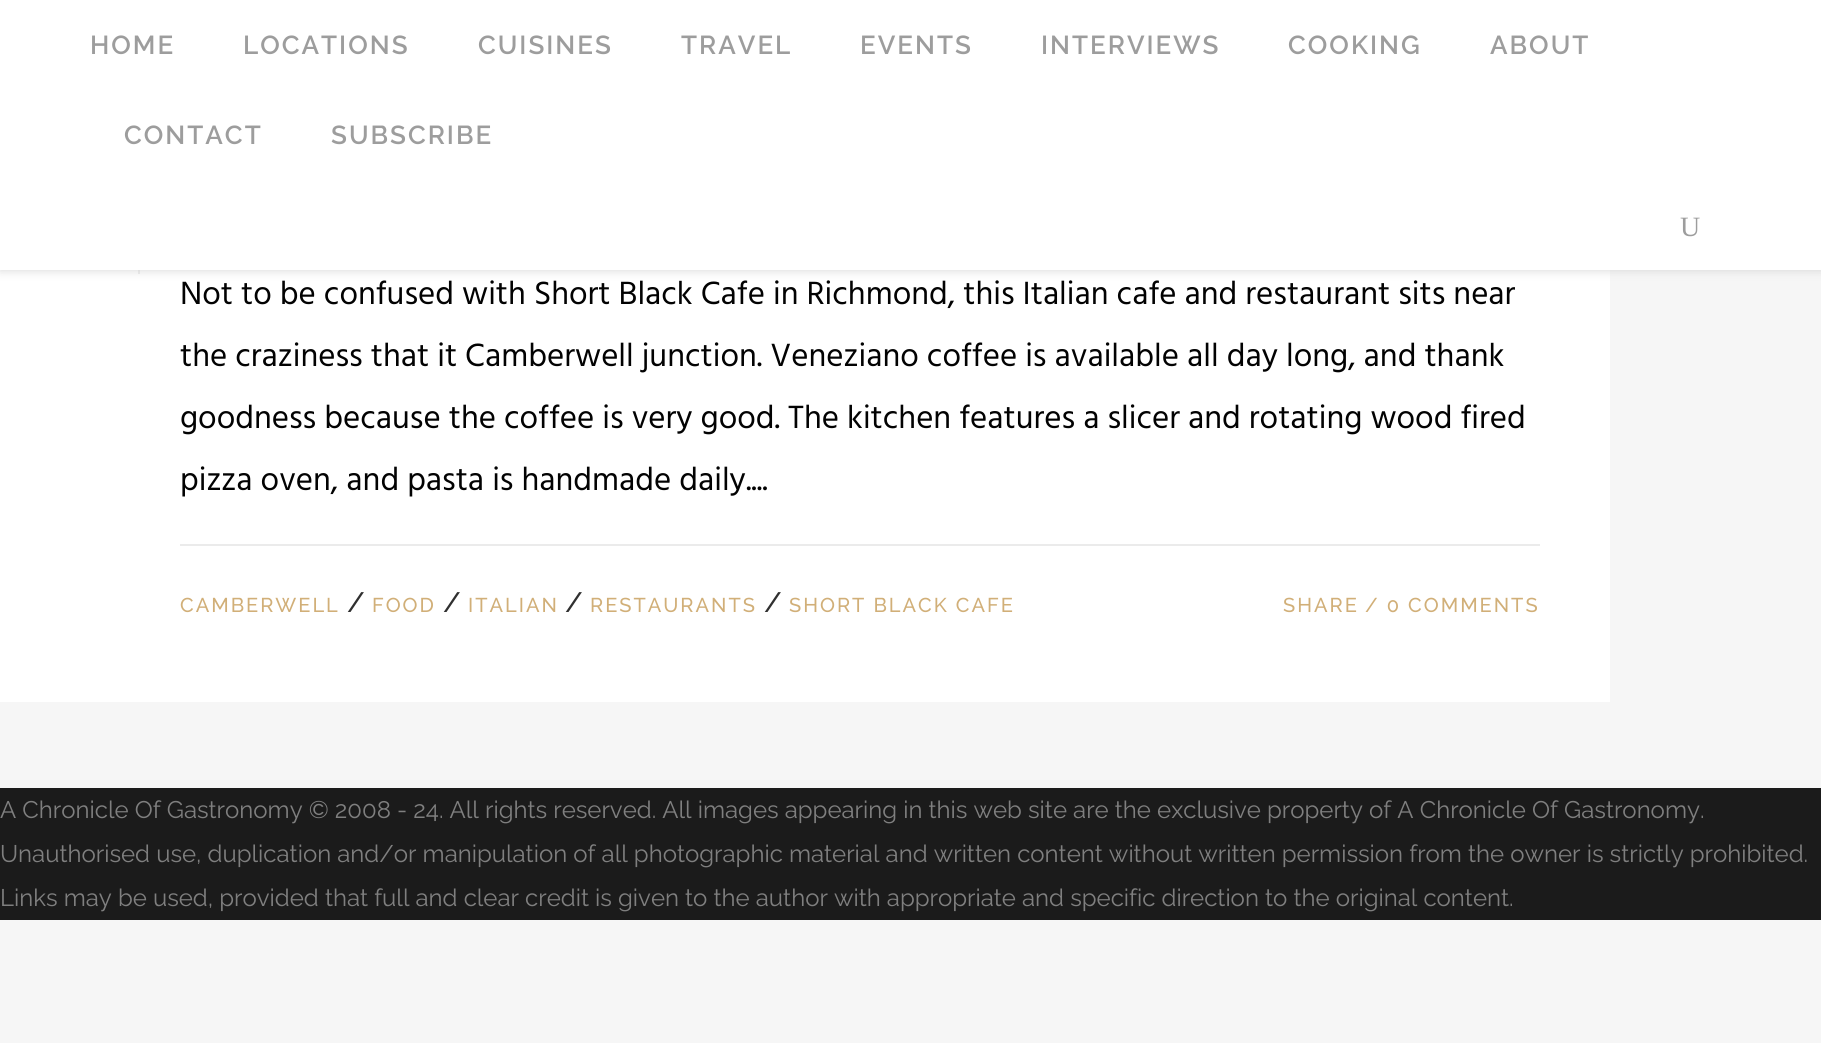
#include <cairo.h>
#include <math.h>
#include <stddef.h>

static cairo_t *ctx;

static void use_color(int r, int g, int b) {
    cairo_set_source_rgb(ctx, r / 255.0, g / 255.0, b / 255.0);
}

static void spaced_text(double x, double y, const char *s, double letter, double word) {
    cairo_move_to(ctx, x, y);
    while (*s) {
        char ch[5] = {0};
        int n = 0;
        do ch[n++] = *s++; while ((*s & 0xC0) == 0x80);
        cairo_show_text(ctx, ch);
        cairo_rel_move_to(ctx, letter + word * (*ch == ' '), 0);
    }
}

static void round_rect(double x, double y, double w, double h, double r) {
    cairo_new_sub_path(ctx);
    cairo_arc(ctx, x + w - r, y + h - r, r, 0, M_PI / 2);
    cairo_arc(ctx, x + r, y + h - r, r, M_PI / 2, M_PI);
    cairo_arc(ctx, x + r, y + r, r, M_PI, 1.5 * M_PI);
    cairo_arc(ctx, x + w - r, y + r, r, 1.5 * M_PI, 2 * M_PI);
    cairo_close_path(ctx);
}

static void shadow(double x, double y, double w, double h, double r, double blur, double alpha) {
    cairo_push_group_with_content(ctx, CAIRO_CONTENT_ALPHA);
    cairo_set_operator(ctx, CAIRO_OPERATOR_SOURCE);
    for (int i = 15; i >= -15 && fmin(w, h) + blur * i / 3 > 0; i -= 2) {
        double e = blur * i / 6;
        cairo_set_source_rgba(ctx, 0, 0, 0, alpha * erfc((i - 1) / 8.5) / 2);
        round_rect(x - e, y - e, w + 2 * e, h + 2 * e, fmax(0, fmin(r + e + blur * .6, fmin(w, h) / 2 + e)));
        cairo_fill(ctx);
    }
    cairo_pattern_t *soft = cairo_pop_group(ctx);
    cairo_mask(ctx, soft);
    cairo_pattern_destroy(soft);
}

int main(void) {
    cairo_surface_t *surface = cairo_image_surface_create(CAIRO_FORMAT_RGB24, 1821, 1043);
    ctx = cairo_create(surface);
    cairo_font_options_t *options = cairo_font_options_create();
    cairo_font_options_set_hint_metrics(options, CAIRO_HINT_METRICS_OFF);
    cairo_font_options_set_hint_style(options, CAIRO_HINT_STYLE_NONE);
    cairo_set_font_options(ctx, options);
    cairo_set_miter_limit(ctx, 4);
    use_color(246, 246, 246);
    cairo_paint(ctx);
    use_color(255, 255, 255);
    cairo_rectangle(ctx, 0, 270, 1610, 432);
    cairo_fill(ctx);
    use_color(235, 235, 235);
    cairo_rectangle(ctx, 138, 270, 2, 4);
    cairo_fill(ctx);
    use_color(212, 212, 212);
    shadow(0, 0, 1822, 270, 0, 5, 1);
    use_color(255, 255, 255);
    cairo_rectangle(ctx, 0, 0, 1821, 270);
    cairo_fill(ctx);
    cairo_select_font_face(ctx, "Raleway SemiBold", CAIRO_FONT_SLANT_NORMAL, CAIRO_FONT_WEIGHT_NORMAL);
    cairo_set_font_size(ctx, 26);
    use_color(157, 157, 157);
    spaced_text(90, 54, "HOME", 2, 0);
    spaced_text(243, 54, "LOCATIONS", 2, 0);
    spaced_text(478, 54, "CUISINES", 2, 0);
    spaced_text(681, 54, "TRAVEL", 2, 0);
    spaced_text(860, 54, "EVENTS", 2, 0);
    spaced_text(1041, 54, "INTERVIEWS", 2, 0);
    spaced_text(1288, 54, "COOKING", 2, 0);
    spaced_text(1490, 54, "ABOUT", 2, 0);
    spaced_text(124, 144, "CONTACT", 2, 0);
    spaced_text(331, 144, "SUBSCRIBE", 2, 0);
    cairo_select_font_face(ctx, "Liberation Serif", CAIRO_FONT_SLANT_NORMAL, CAIRO_FONT_WEIGHT_NORMAL);
    cairo_set_font_size(ctx, 28);
    cairo_move_to(ctx, 1680, 236);
    cairo_show_text(ctx, "U");
    cairo_select_font_face(ctx, "Hind", CAIRO_FONT_SLANT_NORMAL, CAIRO_FONT_WEIGHT_NORMAL);
    cairo_set_font_size(ctx, 33);
    use_color(2, 2, 2);
    cairo_move_to(ctx, 180, 304);
    cairo_show_text(ctx, "Not to be confused with Short Black Cafe in Richmond, this Italian cafe and restaurant sits near");
    cairo_move_to(ctx, 180, 366);
    cairo_show_text(ctx, "the craziness that it Camberwell junction. Veneziano coffee is available all day long, and thank");
    cairo_move_to(ctx, 180, 428);
    cairo_show_text(ctx, "goodness because the coffee is very good. The kitchen features a slicer and rotating wood fired");
    cairo_move_to(ctx, 180, 490);
    cairo_show_text(ctx, "pizza oven, and pasta is handmade daily....");
    use_color(235, 235, 235);
    cairo_rectangle(ctx, 180, 544, 1360, 2);
    cairo_fill(ctx);
    cairo_select_font_face(ctx, "Raleway Medium", CAIRO_FONT_SLANT_NORMAL, CAIRO_FONT_WEIGHT_NORMAL);
    cairo_set_font_size(ctx, 20);
    use_color(209, 175, 120);
    spaced_text(180, 612, "CAMBERWELL", 2, 0);
    cairo_set_font_size(ctx, 28);
    use_color(48, 48, 48);
    cairo_move_to(ctx, 347, 612);
    cairo_show_text(ctx, "/");
    cairo_set_font_size(ctx, 20);
    use_color(209, 175, 120);
    spaced_text(372, 612, "FOOD", 2, 0);
    cairo_set_font_size(ctx, 28);
    use_color(48, 48, 48);
    cairo_move_to(ctx, 443, 612);
    cairo_show_text(ctx, "/");
    cairo_set_font_size(ctx, 20);
    use_color(209, 175, 120);
    spaced_text(468, 612, "ITALIAN", 2, 0);
    cairo_set_font_size(ctx, 28);
    use_color(48, 48, 48);
    cairo_move_to(ctx, 565, 612);
    cairo_show_text(ctx, "/");
    cairo_set_font_size(ctx, 20);
    use_color(209, 175, 120);
    spaced_text(590, 612, "RESTAURANTS", 2, 0);
    cairo_set_font_size(ctx, 28);
    use_color(48, 48, 48);
    cairo_move_to(ctx, 764, 612);
    cairo_show_text(ctx, "/");
    cairo_set_font_size(ctx, 20);
    use_color(209, 175, 120);
    spaced_text(789, 612, "SHORT BLACK CAFE", 2, 0);
    spaced_text(1283, 612, "SHARE", 2, 0);
    spaced_text(1365, 612, "/ 0 COMMENTS", 2, 0);
    use_color(27, 27, 27);
    cairo_rectangle(ctx, 0, 788, 1821, 132);
    cairo_fill(ctx);
    cairo_select_font_face(ctx, "Raleway", CAIRO_FONT_SLANT_NORMAL, CAIRO_FONT_WEIGHT_NORMAL);
    cairo_set_font_size(ctx, 24);
    use_color(127, 127, 127);
    cairo_move_to(ctx, 0, 818);
    cairo_show_text(ctx, "A Chronicle Of Gastronomy © 2008 - 24. All rights reserved. All images appearing in this web site are the exclusive property of A Chronicle Of Gastronomy.");
    cairo_move_to(ctx, 0, 862);
    cairo_show_text(ctx, "Unauthorised use, duplication and/or manipulation of all photographic material and written content without written permission from the owner is strictly prohibited.");
    cairo_move_to(ctx, 0, 906);
    cairo_show_text(ctx, "Links may be used, provided that full and clear credit is given to the author with appropriate and specific direction to the original content.");
    cairo_surface_write_to_png(surface, "result.png");
    cairo_font_options_destroy(options);
    cairo_destroy(ctx);
    cairo_surface_destroy(surface);
    return 0;
}
